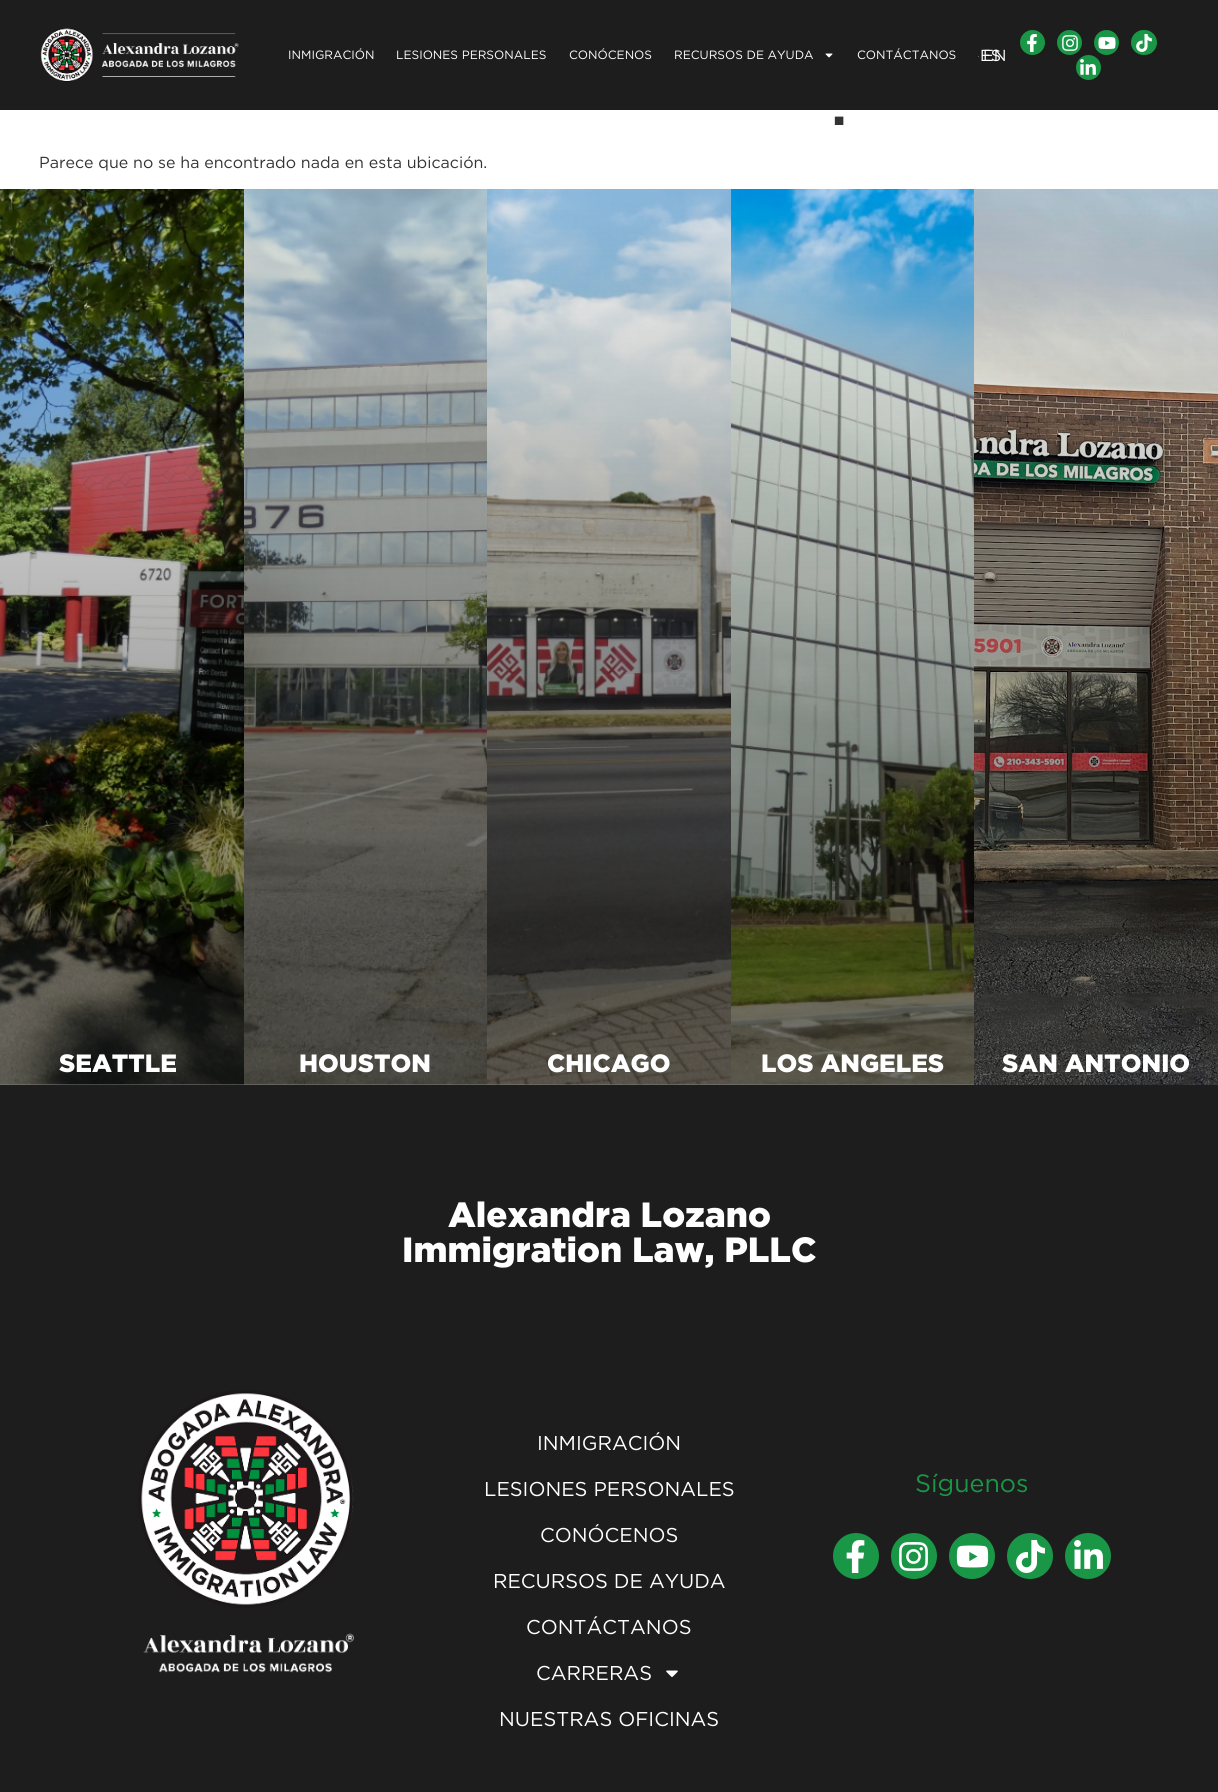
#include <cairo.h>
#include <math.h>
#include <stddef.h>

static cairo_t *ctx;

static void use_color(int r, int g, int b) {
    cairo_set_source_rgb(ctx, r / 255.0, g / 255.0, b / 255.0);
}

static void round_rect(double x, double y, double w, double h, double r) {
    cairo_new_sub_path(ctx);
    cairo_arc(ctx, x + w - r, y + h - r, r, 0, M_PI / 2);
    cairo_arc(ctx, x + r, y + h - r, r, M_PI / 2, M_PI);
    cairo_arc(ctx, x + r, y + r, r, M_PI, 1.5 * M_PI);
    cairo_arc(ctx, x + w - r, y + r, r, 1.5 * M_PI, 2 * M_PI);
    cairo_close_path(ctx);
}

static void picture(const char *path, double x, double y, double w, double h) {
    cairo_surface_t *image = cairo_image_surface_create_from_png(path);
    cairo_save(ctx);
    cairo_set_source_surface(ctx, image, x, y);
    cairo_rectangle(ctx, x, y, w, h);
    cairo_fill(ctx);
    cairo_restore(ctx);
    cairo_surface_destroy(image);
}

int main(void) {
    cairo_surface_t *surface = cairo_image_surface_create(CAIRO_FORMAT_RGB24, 1218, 1792);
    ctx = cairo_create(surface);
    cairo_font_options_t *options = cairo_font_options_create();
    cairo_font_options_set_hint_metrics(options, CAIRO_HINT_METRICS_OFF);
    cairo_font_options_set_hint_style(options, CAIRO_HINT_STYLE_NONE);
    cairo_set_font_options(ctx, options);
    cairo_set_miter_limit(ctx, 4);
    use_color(255, 255, 255);
    cairo_paint(ctx);
    use_color(29, 29, 29);
    cairo_rectangle(ctx, 0, 0, 1218, 110);
    cairo_fill(ctx);
    picture("img1.png", 40, 28, 199, 54);
    cairo_select_font_face(ctx, "Gotham", CAIRO_FONT_SLANT_NORMAL, CAIRO_FONT_WEIGHT_NORMAL);
    cairo_set_font_size(ctx, 12);
    use_color(255, 255, 255);
    cairo_move_to(ctx, 288, 59);
    cairo_show_text(ctx, "INMIGRACIÓN");
    cairo_move_to(ctx, 396, 59);
    cairo_show_text(ctx, "LESIONES PERSONALES");
    cairo_move_to(ctx, 569, 59);
    cairo_show_text(ctx, "CONÓCENOS");
    cairo_move_to(ctx, 674, 59);
    cairo_show_text(ctx, "RECURSOS DE AYUDA");
    picture("img2.png", 825, 53, 8, 5);
    cairo_move_to(ctx, 857, 59);
    cairo_show_text(ctx, "CONTÁCTANOS");
    cairo_set_font_size(ctx, 16);
    cairo_move_to(ctx, 980, 61);
    cairo_show_text(ctx, "ES");
    use_color(96, 98, 91);
    cairo_rectangle(ctx, 978, 56, 1, 1);
    cairo_fill(ctx);
    use_color(255, 255, 255);
    cairo_move_to(ctx, 983, 61);
    cairo_show_text(ctx, "EN");
    use_color(26, 150, 71);
    cairo_new_path(ctx);
    cairo_arc(ctx, 1032.5, 42.5, 12.5, 0, 2 * M_PI);
    cairo_fill(ctx);
    picture("img3.png", 1027, 34, 10, 18);
    cairo_arc(ctx, 1069.5, 42.5, 12.5, 0, 2 * M_PI);
    cairo_fill(ctx);
    picture("img4.png", 1062, 35, 16, 16);
    cairo_arc(ctx, 1106.5, 42.5, 12.5, 0, 2 * M_PI);
    cairo_fill(ctx);
    picture("img5.png", 1098, 37, 18, 12);
    round_rect(1131, 30, 26, 25, 12.5);
    cairo_fill(ctx);
    picture("img6.png", 1136, 34, 16, 18);
    cairo_arc(ctx, 1088.5, 67.5, 12.5, 0, 2 * M_PI);
    cairo_fill(ctx);
    picture("img7.png", 1080, 59, 16, 16);
    cairo_select_font_face(ctx, "Gotham Black", CAIRO_FONT_SLANT_NORMAL, CAIRO_FONT_WEIGHT_NORMAL);
    cairo_set_font_size(ctx, 43);
    use_color(51, 51, 51);
    cairo_move_to(ctx, 833, 125);
    cairo_show_text(ctx, ".");
    cairo_select_font_face(ctx, "Gotham", CAIRO_FONT_SLANT_NORMAL, CAIRO_FONT_WEIGHT_NORMAL);
    cairo_set_font_size(ctx, 16);
    cairo_move_to(ctx, 39, 168);
    cairo_show_text(ctx, "Parece que no se ha encontrado nada en esta ubicación.");
    picture("img8.png", 0, 189, 244, 896);
    cairo_select_font_face(ctx, "Gotham Black", CAIRO_FONT_SLANT_NORMAL, CAIRO_FONT_WEIGHT_NORMAL);
    cairo_set_font_size(ctx, 25);
    use_color(255, 255, 255);
    cairo_move_to(ctx, 59, 1072);
    cairo_show_text(ctx, "SEATTLE");
    picture("img9.png", 244, 189, 243, 896);
    cairo_move_to(ctx, 299, 1072);
    cairo_show_text(ctx, "HOUSTON");
    picture("img10.png", 487, 189, 244, 896);
    cairo_move_to(ctx, 547, 1072);
    cairo_show_text(ctx, "CHICAGO");
    picture("img11.png", 731, 189, 243, 896);
    cairo_move_to(ctx, 761, 1072);
    cairo_show_text(ctx, "LOS ANGELES");
    picture("img12.png", 974, 189, 244, 896);
    cairo_move_to(ctx, 1002, 1072);
    cairo_show_text(ctx, "SAN ANTONIO");
    use_color(29, 29, 29);
    cairo_rectangle(ctx, 0, 1085, 1218, 707);
    cairo_fill(ctx);
    cairo_set_font_size(ctx, 35);
    use_color(255, 255, 255);
    cairo_move_to(ctx, 448, 1227);
    cairo_show_text(ctx, "Alexandra Lozano");
    cairo_move_to(ctx, 402, 1262);
    cairo_show_text(ctx, "Immigration Law, PLLC");
    picture("img13.png", 138, 1390, 216, 283);
    cairo_select_font_face(ctx, "Gotham", CAIRO_FONT_SLANT_NORMAL, CAIRO_FONT_WEIGHT_NORMAL);
    cairo_set_font_size(ctx, 20);
    cairo_move_to(ctx, 537, 1450);
    cairo_show_text(ctx, "INMIGRACIÓN");
    cairo_move_to(ctx, 484, 1496);
    cairo_show_text(ctx, "LESIONES PERSONALES");
    cairo_move_to(ctx, 540, 1542);
    cairo_show_text(ctx, "CONÓCENOS");
    cairo_move_to(ctx, 493, 1588);
    cairo_show_text(ctx, "RECURSOS DE AYUDA");
    cairo_move_to(ctx, 526, 1634);
    cairo_show_text(ctx, "CONTÁCTANOS");
    cairo_move_to(ctx, 536, 1680);
    cairo_show_text(ctx, "CARRERAS");
    picture("img14.png", 666, 1670, 12, 7);
    cairo_move_to(ctx, 499, 1726);
    cairo_show_text(ctx, "NUESTRAS OFICINAS");
    cairo_set_font_size(ctx, 25);
    use_color(26, 150, 71);
    cairo_move_to(ctx, 915, 1492);
    cairo_show_text(ctx, "Síguenos");
    cairo_new_path(ctx);
    cairo_arc(ctx, 856, 1556, 23, 0, 2 * M_PI);
    cairo_fill(ctx);
    picture("img15.png", 846, 1540, 19, 33);
    cairo_arc(ctx, 914, 1556, 23, 0, 2 * M_PI);
    cairo_fill(ctx);
    picture("img16.png", 899, 1542, 29, 29);
    cairo_arc(ctx, 972, 1556, 23, 0, 2 * M_PI);
    cairo_fill(ctx);
    picture("img17.png", 956, 1545, 33, 23);
    cairo_arc(ctx, 1030, 1556, 23, 0, 2 * M_PI);
    cairo_fill(ctx);
    picture("img18.png", 1016, 1540, 29, 33);
    cairo_arc(ctx, 1088, 1556, 23, 0, 2 * M_PI);
    cairo_fill(ctx);
    picture("img19.png", 1074, 1540, 29, 29);
    cairo_surface_write_to_png(surface, "result.png");
    cairo_font_options_destroy(options);
    cairo_destroy(ctx);
    cairo_surface_destroy(surface);
    return 0;
}
